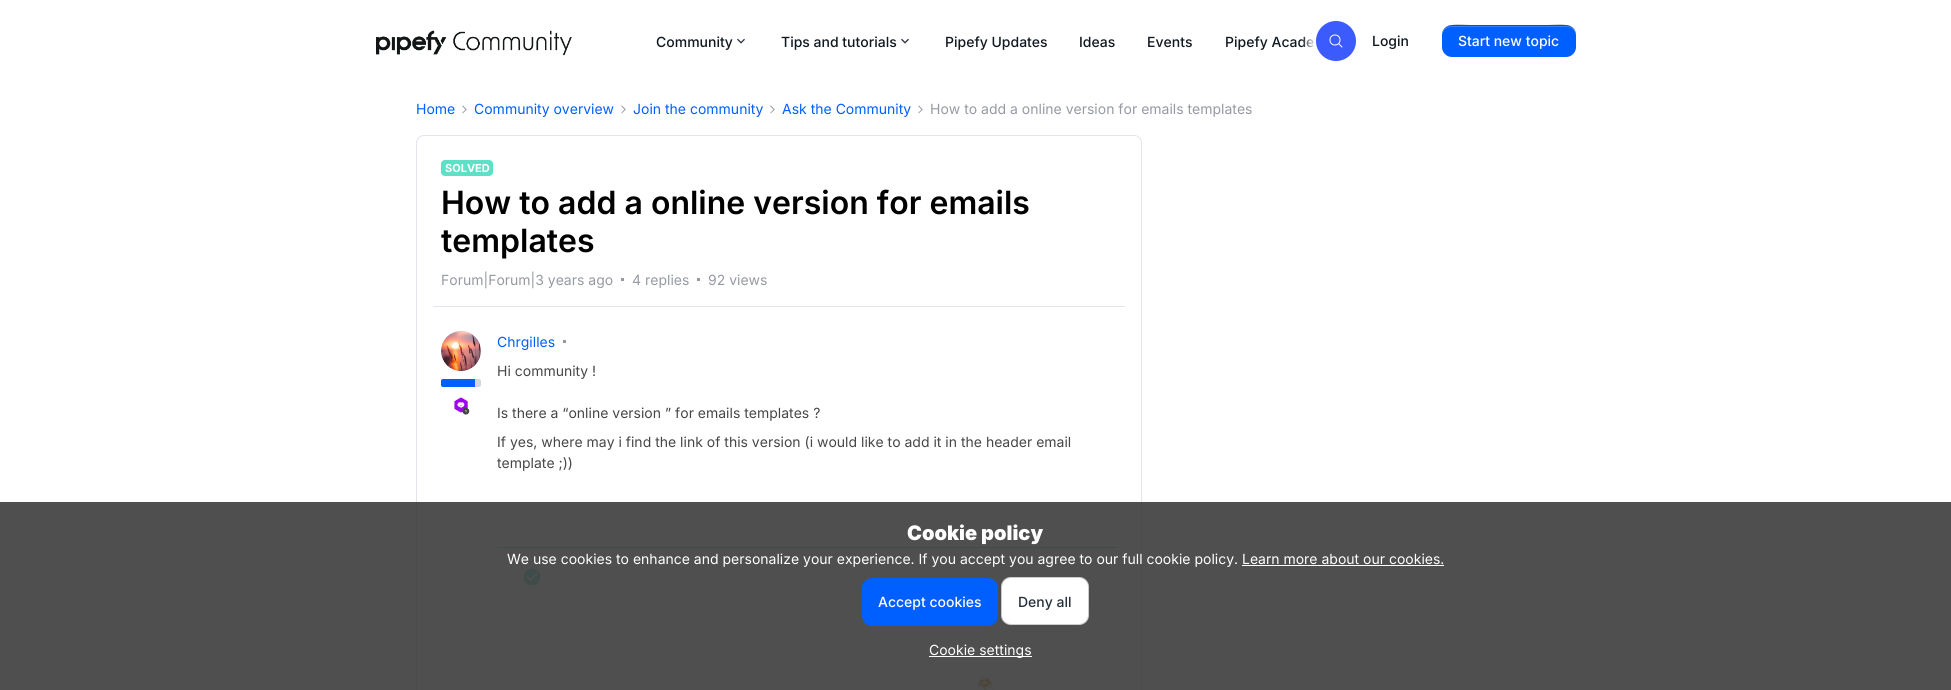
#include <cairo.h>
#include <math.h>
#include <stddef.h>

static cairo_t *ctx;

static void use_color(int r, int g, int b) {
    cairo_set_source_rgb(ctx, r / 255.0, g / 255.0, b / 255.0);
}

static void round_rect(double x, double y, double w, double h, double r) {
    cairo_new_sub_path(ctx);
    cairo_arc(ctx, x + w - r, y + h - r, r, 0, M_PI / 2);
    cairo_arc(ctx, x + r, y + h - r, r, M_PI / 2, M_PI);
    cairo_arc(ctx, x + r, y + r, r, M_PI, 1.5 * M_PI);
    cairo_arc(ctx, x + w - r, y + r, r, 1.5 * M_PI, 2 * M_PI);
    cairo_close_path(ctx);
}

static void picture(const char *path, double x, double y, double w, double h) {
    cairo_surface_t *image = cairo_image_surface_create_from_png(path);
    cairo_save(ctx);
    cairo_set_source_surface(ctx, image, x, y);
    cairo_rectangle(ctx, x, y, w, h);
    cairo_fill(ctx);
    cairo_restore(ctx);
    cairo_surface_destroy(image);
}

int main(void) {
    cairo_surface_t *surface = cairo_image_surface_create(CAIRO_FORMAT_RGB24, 1951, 690);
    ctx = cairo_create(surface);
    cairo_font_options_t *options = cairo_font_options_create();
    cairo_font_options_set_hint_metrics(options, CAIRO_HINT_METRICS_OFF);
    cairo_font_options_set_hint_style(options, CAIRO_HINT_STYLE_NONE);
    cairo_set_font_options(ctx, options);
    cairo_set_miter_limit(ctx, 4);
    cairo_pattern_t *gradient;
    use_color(255, 255, 255);
    cairo_paint(ctx);
    picture("img1.png", 376, 30, 196, 26);
    cairo_select_font_face(ctx, "Inter Medium", CAIRO_FONT_SLANT_NORMAL, CAIRO_FONT_WEIGHT_NORMAL);
    cairo_set_font_size(ctx, 14);
    use_color(16, 24, 32);
    cairo_move_to(ctx, 656, 47);
    cairo_show_text(ctx, "Community");
    picture("img2.png", 737, 38, 8, 6);
    cairo_move_to(ctx, 781, 47);
    cairo_show_text(ctx, "Tips and tutorials");
    picture("img2.png", 901, 38, 8, 6);
    cairo_move_to(ctx, 945, 47);
    cairo_show_text(ctx, "Pipefy Updates");
    cairo_move_to(ctx, 1079, 47);
    cairo_show_text(ctx, "Ideas");
    cairo_move_to(ctx, 1147, 47);
    cairo_show_text(ctx, "Events");
    cairo_move_to(ctx, 1225, 47);
    cairo_show_text(ctx, "Pipefy Acade");
    gradient = cairo_pattern_create_linear(1302, 41, 1316, 41);
    cairo_pattern_add_color_stop_rgba(gradient, 0, 1, 1, 1, 0);
    cairo_pattern_add_color_stop_rgba(gradient, 1, 1, 1, 1, 1);
    cairo_set_source(ctx, gradient);
    cairo_pattern_destroy(gradient);
    cairo_rectangle(ctx, 1302, 36, 12, 12);
    cairo_fill(ctx);
    use_color(59, 91, 253);
    cairo_arc(ctx, 1336, 41, 20, 0, 2 * M_PI);
    cairo_fill(ctx);
    cairo_arc(ctx, 1335, 40, 5, 0, 2 * M_PI);
    use_color(255, 255, 255);
    cairo_set_line_width(ctx, 1);
    cairo_stroke(ctx);
    cairo_new_path(ctx);
    cairo_move_to(ctx, 1339, 44);
    cairo_line_to(ctx, 1342, 47);
    cairo_set_line_cap(ctx, CAIRO_LINE_CAP_ROUND);
    cairo_stroke(ctx);
    use_color(16, 24, 32);
    cairo_move_to(ctx, 1372, 46);
    cairo_show_text(ctx, "Login");
    use_color(0, 95, 255);
    round_rect(1442, 25, 134, 32, 10);
    cairo_fill(ctx);
    cairo_set_source_rgba(ctx, 1, 1, 1, 0.2);
    cairo_new_path(ctx);
    cairo_move_to(ctx, 1452, 27);
    cairo_line_to(ctx, 1566, 27);
    cairo_curve_to(ctx, 1572, 27, 1576, 31, 1576, 37);
    cairo_curve_to(ctx, 1576, 20, 1559, 25, 1547, 25);
    cairo_line_to(ctx, 1471, 25);
    cairo_curve_to(ctx, 1459, 25, 1442, 20, 1442, 37);
    cairo_curve_to(ctx, 1442, 31, 1446, 27, 1452, 27);
    cairo_close_path(ctx);
    cairo_fill(ctx);
    cairo_set_source_rgba(ctx, 0, 0, 0, 0.4);
    cairo_new_path(ctx);
    cairo_move_to(ctx, 1452, 26);
    cairo_line_to(ctx, 1566, 26);
    cairo_curve_to(ctx, 1572, 26, 1576, 30, 1576, 36);
    cairo_curve_to(ctx, 1576, 21, 1557, 25, 1547, 25);
    cairo_line_to(ctx, 1471, 25);
    cairo_curve_to(ctx, 1461, 25, 1442, 21, 1442, 36);
    cairo_curve_to(ctx, 1442, 30, 1446, 26, 1452, 26);
    cairo_close_path(ctx);
    cairo_fill(ctx);
    use_color(255, 255, 255);
    cairo_move_to(ctx, 1458, 46);
    cairo_show_text(ctx, "Start new topic");
    cairo_select_font_face(ctx, "Inter", CAIRO_FONT_SLANT_NORMAL, CAIRO_FONT_WEIGHT_NORMAL);
    use_color(0, 95, 255);
    cairo_move_to(ctx, 416, 114);
    cairo_show_text(ctx, "Home");
    picture("img3.png", 462, 105, 5, 9);
    cairo_move_to(ctx, 474, 114);
    cairo_show_text(ctx, "Community overview");
    picture("img3.png", 621, 105, 5, 9);
    cairo_move_to(ctx, 633, 114);
    cairo_show_text(ctx, "Join the community");
    picture("img3.png", 770, 105, 5, 9);
    cairo_move_to(ctx, 782, 114);
    cairo_show_text(ctx, "Ask the Community");
    picture("img3.png", 918, 105, 5, 9);
    use_color(149, 153, 162);
    cairo_move_to(ctx, 930, 114);
    cairo_show_text(ctx, "How to add a online version for emails templates");
    round_rect(416.5, 135.5, 725, 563, 7.5);
    use_color(227, 228, 236);
    cairo_set_line_cap(ctx, CAIRO_LINE_CAP_BUTT);
    cairo_stroke(ctx);
    use_color(94, 223, 198);
    round_rect(441, 160, 52, 16, 4);
    cairo_fill(ctx);
    cairo_select_font_face(ctx, "Inter", CAIRO_FONT_SLANT_NORMAL, CAIRO_FONT_WEIGHT_BOLD);
    cairo_set_font_size(ctx, 11);
    use_color(255, 255, 255);
    cairo_move_to(ctx, 445, 172);
    cairo_show_text(ctx, "SOLVED");
    cairo_select_font_face(ctx, "Inter SemiBold", CAIRO_FONT_SLANT_NORMAL, CAIRO_FONT_WEIGHT_NORMAL);
    cairo_set_font_size(ctx, 32);
    use_color(0, 0, 0);
    cairo_move_to(ctx, 441, 214);
    cairo_show_text(ctx, "How to add a online version for emails");
    cairo_move_to(ctx, 441, 252);
    cairo_show_text(ctx, "templates");
    cairo_select_font_face(ctx, "Inter", CAIRO_FONT_SLANT_NORMAL, CAIRO_FONT_WEIGHT_NORMAL);
    cairo_set_font_size(ctx, 14);
    use_color(149, 153, 162);
    cairo_move_to(ctx, 441, 285);
    cairo_show_text(ctx, "Forum|Forum|3 years ago");
    cairo_rectangle(ctx, 621, 278, 3, 3);
    cairo_fill(ctx);
    cairo_move_to(ctx, 632, 285);
    cairo_show_text(ctx, "4 replies");
    cairo_rectangle(ctx, 697, 278, 3, 3);
    cairo_fill(ctx);
    cairo_move_to(ctx, 708, 285);
    cairo_show_text(ctx, "92 views");
    use_color(227, 228, 236);
    cairo_rectangle(ctx, 433, 306, 692, 1);
    cairo_fill(ctx);
    use_color(204, 209, 215);
    cairo_arc(ctx, 461, 351, 20, 0, 2 * M_PI);
    cairo_fill(ctx);
    picture("img4.png", 441, 331, 40, 40);
    use_color(213, 215, 219);
    round_rect(441, 379, 40, 8, 2);
    cairo_fill(ctx);
    use_color(0, 95, 255);
    cairo_new_path(ctx);
    cairo_move_to(ctx, 443, 379);
    cairo_line_to(ctx, 475, 379);
    cairo_line_to(ctx, 475, 387);
    cairo_line_to(ctx, 443, 387);
    cairo_curve_to(ctx, 442, 387, 441, 386, 441, 385);
    cairo_line_to(ctx, 441, 381);
    cairo_curve_to(ctx, 441, 380, 442, 379, 443, 379);
    cairo_close_path(ctx);
    cairo_fill(ctx);
    picture("img5.png", 454, 397, 16, 18);
    cairo_move_to(ctx, 497, 347);
    cairo_show_text(ctx, "Chrgilles");
    use_color(149, 153, 162);
    cairo_rectangle(ctx, 563, 340, 3, 3);
    cairo_fill(ctx);
    use_color(69, 71, 69);
    cairo_move_to(ctx, 497, 376);
    cairo_show_text(ctx, "Hi community !");
    cairo_move_to(ctx, 497, 418);
    cairo_show_text(ctx, "Is there a “online version ” for emails templates ?");
    cairo_move_to(ctx, 497, 447);
    cairo_show_text(ctx, "If yes, where may i find the link of this version (i would like to add it in the header email");
    cairo_move_to(ctx, 497, 468);
    cairo_show_text(ctx, "template ;))");
    use_color(94, 223, 198);
    cairo_rectangle(ctx, 497, 547, 620, 1);
    cairo_fill(ctx);
    picture("img6.png", 523, 568, 18, 18);
    picture("img7.png", 977, 677, 16, 13);
    cairo_set_source_rgba(ctx, 0.235, 0.235, 0.235, 0.9);
    cairo_rectangle(ctx, 0, 502, 1951, 188);
    cairo_fill(ctx);
    cairo_select_font_face(ctx, "Inter Black", CAIRO_FONT_SLANT_NORMAL, CAIRO_FONT_WEIGHT_NORMAL);
    cairo_set_font_size(ctx, 20);
    use_color(255, 255, 255);
    cairo_move_to(ctx, 907, 540);
    cairo_show_text(ctx, "Cookie policy");
    cairo_select_font_face(ctx, "Inter", CAIRO_FONT_SLANT_NORMAL, CAIRO_FONT_WEIGHT_NORMAL);
    cairo_set_font_size(ctx, 14);
    cairo_move_to(ctx, 507, 564);
    cairo_show_text(ctx, "We use cookies to enhance and personalize your experience. If you accept you agree to our full cookie policy. Learn more about our cookies.");
    cairo_rectangle(ctx, 1242, 565, 202, 1);
    cairo_fill(ctx);
    use_color(0, 95, 255);
    round_rect(862, 578, 136, 48, 10);
    cairo_fill(ctx);
    cairo_select_font_face(ctx, "Inter Medium", CAIRO_FONT_SLANT_NORMAL, CAIRO_FONT_WEIGHT_NORMAL);
    use_color(255, 255, 255);
    cairo_move_to(ctx, 878, 607);
    cairo_show_text(ctx, "Accept cookies");
    round_rect(1001, 577, 88, 48, 10);
    cairo_fill(ctx);
    round_rect(1001.5, 577.5, 87, 47, 9.5);
    cairo_set_source_rgba(ctx, 0, 0, 0, 0.2);
    cairo_stroke(ctx);
    use_color(37, 49, 59);
    cairo_move_to(ctx, 1018, 607);
    cairo_show_text(ctx, "Deny all");
    use_color(255, 255, 255);
    cairo_rectangle(ctx, 929, 656, 103, 1);
    cairo_fill(ctx);
    cairo_select_font_face(ctx, "Inter", CAIRO_FONT_SLANT_NORMAL, CAIRO_FONT_WEIGHT_NORMAL);
    cairo_move_to(ctx, 929, 655);
    cairo_show_text(ctx, "Cookie settings");
    cairo_surface_write_to_png(surface, "result.png");
    cairo_font_options_destroy(options);
    cairo_destroy(ctx);
    cairo_surface_destroy(surface);
    return 0;
}
